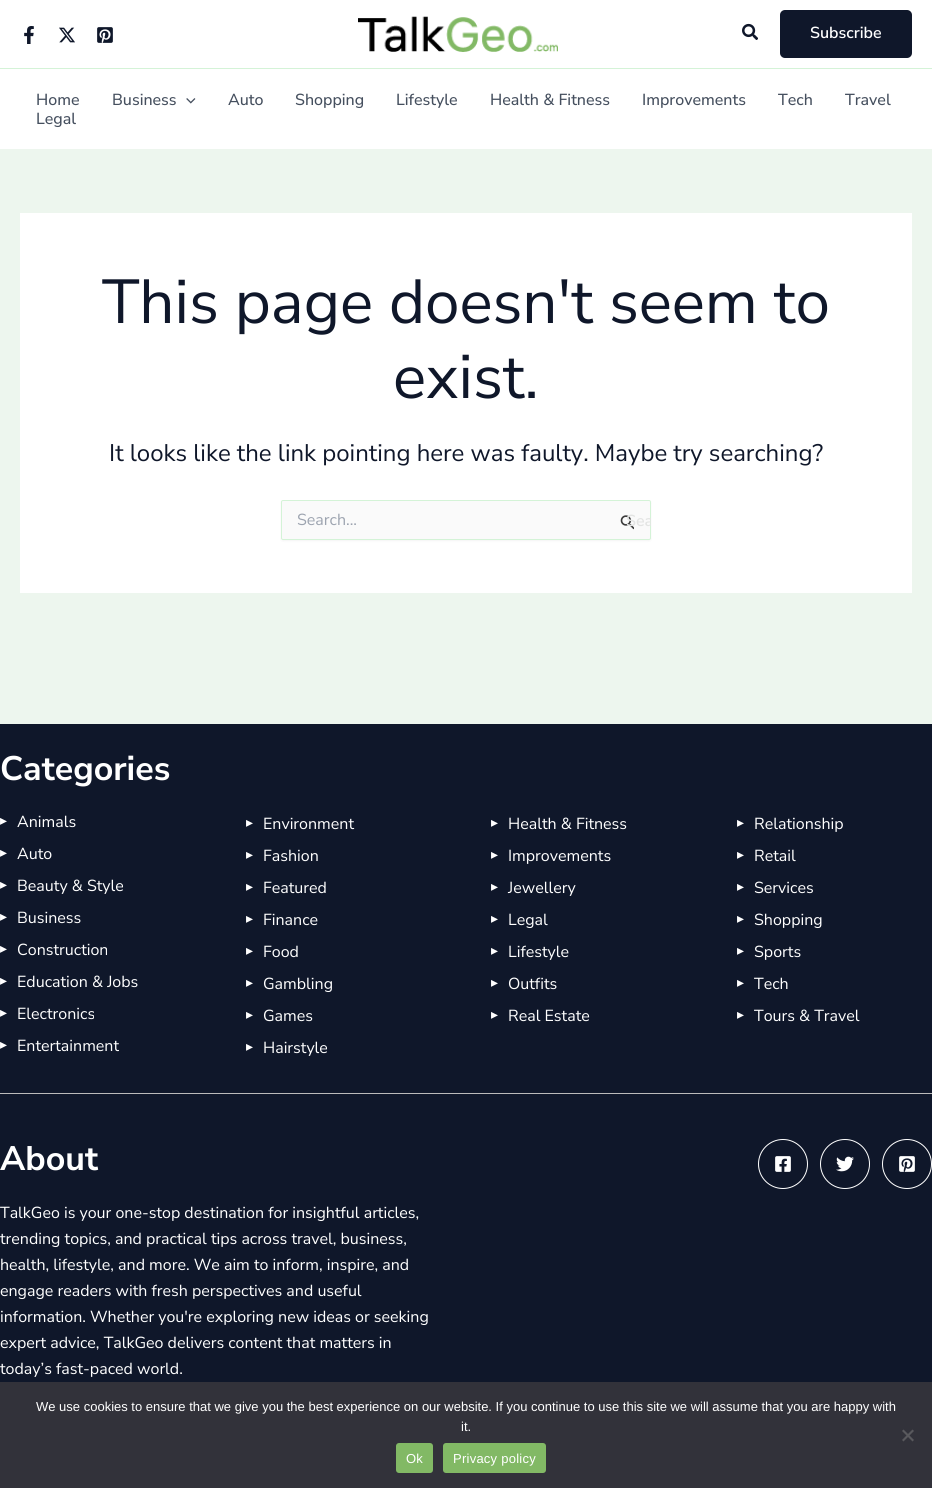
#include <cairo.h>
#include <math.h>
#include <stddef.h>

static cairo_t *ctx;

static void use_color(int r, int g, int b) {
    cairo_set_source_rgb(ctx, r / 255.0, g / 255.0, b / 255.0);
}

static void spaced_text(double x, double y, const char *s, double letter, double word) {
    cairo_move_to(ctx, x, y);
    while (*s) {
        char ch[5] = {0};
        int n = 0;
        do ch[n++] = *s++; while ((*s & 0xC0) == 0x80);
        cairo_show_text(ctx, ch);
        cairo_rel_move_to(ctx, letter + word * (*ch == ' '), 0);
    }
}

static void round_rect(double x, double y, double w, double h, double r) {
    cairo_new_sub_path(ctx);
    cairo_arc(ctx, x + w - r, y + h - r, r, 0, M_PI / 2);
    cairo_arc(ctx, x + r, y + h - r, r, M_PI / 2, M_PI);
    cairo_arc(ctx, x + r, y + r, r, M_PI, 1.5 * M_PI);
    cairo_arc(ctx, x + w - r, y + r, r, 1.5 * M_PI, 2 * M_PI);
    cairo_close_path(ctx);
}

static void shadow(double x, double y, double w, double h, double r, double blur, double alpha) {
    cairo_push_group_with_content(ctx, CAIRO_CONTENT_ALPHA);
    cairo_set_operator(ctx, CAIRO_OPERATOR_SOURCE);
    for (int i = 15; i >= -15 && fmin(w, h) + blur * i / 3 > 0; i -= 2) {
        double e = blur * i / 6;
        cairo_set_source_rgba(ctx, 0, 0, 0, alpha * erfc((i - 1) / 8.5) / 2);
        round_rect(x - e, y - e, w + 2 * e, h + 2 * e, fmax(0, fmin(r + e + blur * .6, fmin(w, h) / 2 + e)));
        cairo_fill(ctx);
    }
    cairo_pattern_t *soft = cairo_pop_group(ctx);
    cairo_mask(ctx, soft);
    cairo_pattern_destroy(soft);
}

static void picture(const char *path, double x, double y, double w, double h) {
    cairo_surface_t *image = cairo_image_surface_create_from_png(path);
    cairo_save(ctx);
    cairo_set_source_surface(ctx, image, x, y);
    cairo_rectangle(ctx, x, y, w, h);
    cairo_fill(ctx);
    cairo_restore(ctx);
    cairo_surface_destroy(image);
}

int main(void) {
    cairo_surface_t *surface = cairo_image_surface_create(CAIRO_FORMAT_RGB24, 932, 1488);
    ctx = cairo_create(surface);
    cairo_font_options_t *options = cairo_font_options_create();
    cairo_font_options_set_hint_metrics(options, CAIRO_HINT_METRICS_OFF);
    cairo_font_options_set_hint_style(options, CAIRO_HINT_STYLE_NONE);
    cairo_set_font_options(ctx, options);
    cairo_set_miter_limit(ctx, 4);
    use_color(237, 246, 238);
    cairo_paint(ctx);
    use_color(255, 255, 255);
    cairo_rectangle(ctx, 0, 0, 932, 68);
    cairo_fill(ctx);
    use_color(212, 243, 215);
    cairo_rectangle(ctx, 0, 68, 932, 1);
    cairo_fill(ctx);
    picture("img1.png", 24, 26, 10, 18);
    picture("img2.png", 59, 27, 16, 16);
    picture("img3.png", 97, 27, 16, 16);
    picture("img4.png", 358, 16, 200, 36);
    picture("img5.png", 742, 23, 16, 17);
    use_color(15, 23, 42);
    round_rect(780, 10, 132, 48, 5);
    cairo_fill(ctx);
    cairo_select_font_face(ctx, "Nunito Sans SemiBold", CAIRO_FONT_SLANT_NORMAL, CAIRO_FONT_WEIGHT_NORMAL);
    cairo_set_font_size(ctx, 16);
    use_color(255, 255, 255);
    cairo_move_to(ctx, 810, 38);
    cairo_show_text(ctx, "Subscribe");
    cairo_rectangle(ctx, 0, 69, 932, 80);
    cairo_fill(ctx);
    cairo_select_font_face(ctx, "Nunito Sans Medium", CAIRO_FONT_SLANT_NORMAL, CAIRO_FONT_WEIGHT_NORMAL);
    use_color(69, 79, 94);
    cairo_move_to(ctx, 36, 105);
    cairo_show_text(ctx, "Home");
    cairo_move_to(ctx, 112, 105);
    cairo_show_text(ctx, "Business");
    picture("img6.png", 186, 98, 10, 6);
    cairo_move_to(ctx, 228, 105);
    cairo_show_text(ctx, "Auto");
    cairo_move_to(ctx, 295, 105);
    cairo_show_text(ctx, "Shopping");
    cairo_move_to(ctx, 396, 105);
    cairo_show_text(ctx, "Lifestyle");
    cairo_move_to(ctx, 490, 105);
    cairo_show_text(ctx, "Health & Fitness");
    cairo_move_to(ctx, 642, 105);
    cairo_show_text(ctx, "Improvements");
    cairo_move_to(ctx, 778, 105);
    cairo_show_text(ctx, "Tech");
    cairo_move_to(ctx, 845, 105);
    cairo_show_text(ctx, "Travel");
    cairo_move_to(ctx, 36, 124);
    cairo_show_text(ctx, "Legal");
    use_color(255, 255, 255);
    cairo_rectangle(ctx, 20, 213, 892, 380);
    cairo_fill(ctx);
    cairo_select_font_face(ctx, "Nunito Sans", CAIRO_FONT_SLANT_NORMAL, CAIRO_FONT_WEIGHT_NORMAL);
    cairo_set_font_size(ctx, 62);
    use_color(15, 23, 42);
    cairo_move_to(ctx, 102, 323);
    cairo_show_text(ctx, "This page doesn't seem to");
    cairo_move_to(ctx, 393, 398);
    cairo_show_text(ctx, "exist.");
    cairo_set_font_size(ctx, 24);
    cairo_move_to(ctx, 109, 461);
    cairo_show_text(ctx, "It looks like the link pointing here was faulty. Maybe try searching?");
    use_color(0, 0, 0);
    shadow(281, 501, 370, 40, 2, 1, 0.05);
    use_color(250, 250, 250);
    round_rect(281.5, 500.5, 369, 39, 1.5);
    cairo_fill_preserve(ctx);
    use_color(212, 243, 215);
    cairo_set_line_width(ctx, 1);
    cairo_stroke(ctx);
    cairo_set_font_size(ctx, 16);
    use_color(156, 163, 175);
    cairo_move_to(ctx, 297, 525);
    cairo_show_text(ctx, "Search...");
    picture("img7.png", 620, 515, 14, 15);
    cairo_save(ctx);
    round_rect(606, 500, 45, 44, 2);
    cairo_clip(ctx);
    cairo_select_font_face(ctx, "Nunito Sans SemiBold", CAIRO_FONT_SLANT_NORMAL, CAIRO_FONT_WEIGHT_NORMAL);
    use_color(227, 228, 227);
    cairo_move_to(ctx, 626, 526);
    cairo_show_text(ctx, "Sea");
    cairo_restore(ctx);
    use_color(15, 23, 42);
    cairo_rectangle(ctx, 0, 724, 932, 369);
    cairo_fill(ctx);
    use_color(187, 187, 187);
    cairo_rectangle(ctx, 0, 1093, 932, 1);
    cairo_fill(ctx);
    cairo_select_font_face(ctx, "Nunito Sans", CAIRO_FONT_SLANT_NORMAL, CAIRO_FONT_WEIGHT_BOLD);
    cairo_set_font_size(ctx, 34);
    use_color(255, 255, 255);
    cairo_move_to(ctx, 0, 780);
    cairo_show_text(ctx, "Categories");
    cairo_select_font_face(ctx, "DejaVu Sans", CAIRO_FONT_SLANT_NORMAL, CAIRO_FONT_WEIGHT_NORMAL);
    cairo_set_font_size(ctx, 14);
    cairo_move_to(ctx, 0, 825);
    cairo_show_text(ctx, "▸");
    cairo_select_font_face(ctx, "Nunito Sans", CAIRO_FONT_SLANT_NORMAL, CAIRO_FONT_WEIGHT_NORMAL);
    cairo_set_font_size(ctx, 16);
    cairo_move_to(ctx, 17, 827);
    cairo_show_text(ctx, "Animals");
    cairo_select_font_face(ctx, "DejaVu Sans", CAIRO_FONT_SLANT_NORMAL, CAIRO_FONT_WEIGHT_NORMAL);
    cairo_set_font_size(ctx, 14);
    cairo_move_to(ctx, 0, 857);
    cairo_show_text(ctx, "▸");
    cairo_select_font_face(ctx, "Nunito Sans", CAIRO_FONT_SLANT_NORMAL, CAIRO_FONT_WEIGHT_NORMAL);
    cairo_set_font_size(ctx, 16);
    cairo_move_to(ctx, 17, 859);
    cairo_show_text(ctx, "Auto");
    cairo_select_font_face(ctx, "DejaVu Sans", CAIRO_FONT_SLANT_NORMAL, CAIRO_FONT_WEIGHT_NORMAL);
    cairo_set_font_size(ctx, 14);
    cairo_move_to(ctx, 0, 889);
    cairo_show_text(ctx, "▸");
    cairo_select_font_face(ctx, "Nunito Sans", CAIRO_FONT_SLANT_NORMAL, CAIRO_FONT_WEIGHT_NORMAL);
    cairo_set_font_size(ctx, 16);
    cairo_move_to(ctx, 17, 891);
    cairo_show_text(ctx, "Beauty & Style");
    cairo_select_font_face(ctx, "DejaVu Sans", CAIRO_FONT_SLANT_NORMAL, CAIRO_FONT_WEIGHT_NORMAL);
    cairo_set_font_size(ctx, 14);
    cairo_move_to(ctx, 0, 921);
    cairo_show_text(ctx, "▸");
    cairo_select_font_face(ctx, "Nunito Sans", CAIRO_FONT_SLANT_NORMAL, CAIRO_FONT_WEIGHT_NORMAL);
    cairo_set_font_size(ctx, 16);
    cairo_move_to(ctx, 17, 923);
    cairo_show_text(ctx, "Business");
    cairo_select_font_face(ctx, "DejaVu Sans", CAIRO_FONT_SLANT_NORMAL, CAIRO_FONT_WEIGHT_NORMAL);
    cairo_set_font_size(ctx, 14);
    cairo_move_to(ctx, 0, 953);
    cairo_show_text(ctx, "▸");
    cairo_select_font_face(ctx, "Nunito Sans", CAIRO_FONT_SLANT_NORMAL, CAIRO_FONT_WEIGHT_NORMAL);
    cairo_set_font_size(ctx, 16);
    cairo_move_to(ctx, 17, 955);
    cairo_show_text(ctx, "Construction");
    cairo_select_font_face(ctx, "DejaVu Sans", CAIRO_FONT_SLANT_NORMAL, CAIRO_FONT_WEIGHT_NORMAL);
    cairo_set_font_size(ctx, 14);
    cairo_move_to(ctx, 0, 985);
    cairo_show_text(ctx, "▸");
    cairo_select_font_face(ctx, "Nunito Sans", CAIRO_FONT_SLANT_NORMAL, CAIRO_FONT_WEIGHT_NORMAL);
    cairo_set_font_size(ctx, 16);
    cairo_move_to(ctx, 17, 987);
    cairo_show_text(ctx, "Education & Jobs");
    cairo_select_font_face(ctx, "DejaVu Sans", CAIRO_FONT_SLANT_NORMAL, CAIRO_FONT_WEIGHT_NORMAL);
    cairo_set_font_size(ctx, 14);
    cairo_move_to(ctx, 0, 1017);
    cairo_show_text(ctx, "▸");
    cairo_select_font_face(ctx, "Nunito Sans", CAIRO_FONT_SLANT_NORMAL, CAIRO_FONT_WEIGHT_NORMAL);
    cairo_set_font_size(ctx, 16);
    cairo_move_to(ctx, 17, 1019);
    cairo_show_text(ctx, "Electronics");
    cairo_select_font_face(ctx, "DejaVu Sans", CAIRO_FONT_SLANT_NORMAL, CAIRO_FONT_WEIGHT_NORMAL);
    cairo_set_font_size(ctx, 14);
    cairo_move_to(ctx, 0, 1049);
    cairo_show_text(ctx, "▸");
    cairo_select_font_face(ctx, "Nunito Sans", CAIRO_FONT_SLANT_NORMAL, CAIRO_FONT_WEIGHT_NORMAL);
    cairo_set_font_size(ctx, 16);
    cairo_move_to(ctx, 17, 1051);
    cairo_show_text(ctx, "Entertainment");
    cairo_select_font_face(ctx, "DejaVu Sans", CAIRO_FONT_SLANT_NORMAL, CAIRO_FONT_WEIGHT_NORMAL);
    cairo_set_font_size(ctx, 14);
    cairo_move_to(ctx, 246, 827);
    cairo_show_text(ctx, "▸");
    cairo_select_font_face(ctx, "Nunito Sans", CAIRO_FONT_SLANT_NORMAL, CAIRO_FONT_WEIGHT_NORMAL);
    cairo_set_font_size(ctx, 16);
    cairo_move_to(ctx, 263, 829);
    cairo_show_text(ctx, "Environment");
    cairo_select_font_face(ctx, "DejaVu Sans", CAIRO_FONT_SLANT_NORMAL, CAIRO_FONT_WEIGHT_NORMAL);
    cairo_set_font_size(ctx, 14);
    cairo_move_to(ctx, 246, 859);
    cairo_show_text(ctx, "▸");
    cairo_select_font_face(ctx, "Nunito Sans", CAIRO_FONT_SLANT_NORMAL, CAIRO_FONT_WEIGHT_NORMAL);
    cairo_set_font_size(ctx, 16);
    cairo_move_to(ctx, 263, 861);
    cairo_show_text(ctx, "Fashion");
    cairo_select_font_face(ctx, "DejaVu Sans", CAIRO_FONT_SLANT_NORMAL, CAIRO_FONT_WEIGHT_NORMAL);
    cairo_set_font_size(ctx, 14);
    cairo_move_to(ctx, 246, 891);
    cairo_show_text(ctx, "▸");
    cairo_select_font_face(ctx, "Nunito Sans", CAIRO_FONT_SLANT_NORMAL, CAIRO_FONT_WEIGHT_NORMAL);
    cairo_set_font_size(ctx, 16);
    cairo_move_to(ctx, 263, 893);
    cairo_show_text(ctx, "Featured");
    cairo_select_font_face(ctx, "DejaVu Sans", CAIRO_FONT_SLANT_NORMAL, CAIRO_FONT_WEIGHT_NORMAL);
    cairo_set_font_size(ctx, 14);
    cairo_move_to(ctx, 246, 923);
    cairo_show_text(ctx, "▸");
    cairo_select_font_face(ctx, "Nunito Sans", CAIRO_FONT_SLANT_NORMAL, CAIRO_FONT_WEIGHT_NORMAL);
    cairo_set_font_size(ctx, 16);
    cairo_move_to(ctx, 263, 925);
    cairo_show_text(ctx, "Finance");
    cairo_select_font_face(ctx, "DejaVu Sans", CAIRO_FONT_SLANT_NORMAL, CAIRO_FONT_WEIGHT_NORMAL);
    cairo_set_font_size(ctx, 14);
    cairo_move_to(ctx, 246, 955);
    cairo_show_text(ctx, "▸");
    cairo_select_font_face(ctx, "Nunito Sans", CAIRO_FONT_SLANT_NORMAL, CAIRO_FONT_WEIGHT_NORMAL);
    cairo_set_font_size(ctx, 16);
    cairo_move_to(ctx, 263, 957);
    cairo_show_text(ctx, "Food");
    cairo_select_font_face(ctx, "DejaVu Sans", CAIRO_FONT_SLANT_NORMAL, CAIRO_FONT_WEIGHT_NORMAL);
    cairo_set_font_size(ctx, 14);
    cairo_move_to(ctx, 246, 987);
    cairo_show_text(ctx, "▸");
    cairo_select_font_face(ctx, "Nunito Sans", CAIRO_FONT_SLANT_NORMAL, CAIRO_FONT_WEIGHT_NORMAL);
    cairo_set_font_size(ctx, 16);
    cairo_move_to(ctx, 263, 989);
    cairo_show_text(ctx, "Gambling");
    cairo_select_font_face(ctx, "DejaVu Sans", CAIRO_FONT_SLANT_NORMAL, CAIRO_FONT_WEIGHT_NORMAL);
    cairo_set_font_size(ctx, 14);
    cairo_move_to(ctx, 246, 1019);
    cairo_show_text(ctx, "▸");
    cairo_select_font_face(ctx, "Nunito Sans", CAIRO_FONT_SLANT_NORMAL, CAIRO_FONT_WEIGHT_NORMAL);
    cairo_set_font_size(ctx, 16);
    cairo_move_to(ctx, 263, 1021);
    cairo_show_text(ctx, "Games");
    cairo_select_font_face(ctx, "DejaVu Sans", CAIRO_FONT_SLANT_NORMAL, CAIRO_FONT_WEIGHT_NORMAL);
    cairo_set_font_size(ctx, 14);
    cairo_move_to(ctx, 246, 1051);
    cairo_show_text(ctx, "▸");
    cairo_select_font_face(ctx, "Nunito Sans", CAIRO_FONT_SLANT_NORMAL, CAIRO_FONT_WEIGHT_NORMAL);
    cairo_set_font_size(ctx, 16);
    cairo_move_to(ctx, 263, 1053);
    cairo_show_text(ctx, "Hairstyle");
    cairo_select_font_face(ctx, "DejaVu Sans", CAIRO_FONT_SLANT_NORMAL, CAIRO_FONT_WEIGHT_NORMAL);
    cairo_set_font_size(ctx, 14);
    cairo_move_to(ctx, 491, 827);
    cairo_show_text(ctx, "▸");
    cairo_select_font_face(ctx, "Nunito Sans", CAIRO_FONT_SLANT_NORMAL, CAIRO_FONT_WEIGHT_NORMAL);
    cairo_set_font_size(ctx, 16);
    cairo_move_to(ctx, 508, 829);
    cairo_show_text(ctx, "Health & Fitness");
    cairo_select_font_face(ctx, "DejaVu Sans", CAIRO_FONT_SLANT_NORMAL, CAIRO_FONT_WEIGHT_NORMAL);
    cairo_set_font_size(ctx, 14);
    cairo_move_to(ctx, 491, 859);
    cairo_show_text(ctx, "▸");
    cairo_select_font_face(ctx, "Nunito Sans", CAIRO_FONT_SLANT_NORMAL, CAIRO_FONT_WEIGHT_NORMAL);
    cairo_set_font_size(ctx, 16);
    cairo_move_to(ctx, 508, 861);
    cairo_show_text(ctx, "Improvements");
    cairo_select_font_face(ctx, "DejaVu Sans", CAIRO_FONT_SLANT_NORMAL, CAIRO_FONT_WEIGHT_NORMAL);
    cairo_set_font_size(ctx, 14);
    cairo_move_to(ctx, 491, 891);
    cairo_show_text(ctx, "▸");
    cairo_select_font_face(ctx, "Nunito Sans", CAIRO_FONT_SLANT_NORMAL, CAIRO_FONT_WEIGHT_NORMAL);
    cairo_set_font_size(ctx, 16);
    cairo_move_to(ctx, 508, 893);
    cairo_show_text(ctx, "Jewellery");
    cairo_select_font_face(ctx, "DejaVu Sans", CAIRO_FONT_SLANT_NORMAL, CAIRO_FONT_WEIGHT_NORMAL);
    cairo_set_font_size(ctx, 14);
    cairo_move_to(ctx, 491, 923);
    cairo_show_text(ctx, "▸");
    cairo_select_font_face(ctx, "Nunito Sans", CAIRO_FONT_SLANT_NORMAL, CAIRO_FONT_WEIGHT_NORMAL);
    cairo_set_font_size(ctx, 16);
    cairo_move_to(ctx, 508, 925);
    cairo_show_text(ctx, "Legal");
    cairo_select_font_face(ctx, "DejaVu Sans", CAIRO_FONT_SLANT_NORMAL, CAIRO_FONT_WEIGHT_NORMAL);
    cairo_set_font_size(ctx, 14);
    cairo_move_to(ctx, 491, 955);
    cairo_show_text(ctx, "▸");
    cairo_select_font_face(ctx, "Nunito Sans", CAIRO_FONT_SLANT_NORMAL, CAIRO_FONT_WEIGHT_NORMAL);
    cairo_set_font_size(ctx, 16);
    cairo_move_to(ctx, 508, 957);
    cairo_show_text(ctx, "Lifestyle");
    cairo_select_font_face(ctx, "DejaVu Sans", CAIRO_FONT_SLANT_NORMAL, CAIRO_FONT_WEIGHT_NORMAL);
    cairo_set_font_size(ctx, 14);
    cairo_move_to(ctx, 491, 987);
    cairo_show_text(ctx, "▸");
    cairo_select_font_face(ctx, "Nunito Sans", CAIRO_FONT_SLANT_NORMAL, CAIRO_FONT_WEIGHT_NORMAL);
    cairo_set_font_size(ctx, 16);
    cairo_move_to(ctx, 508, 989);
    cairo_show_text(ctx, "Outfits");
    cairo_select_font_face(ctx, "DejaVu Sans", CAIRO_FONT_SLANT_NORMAL, CAIRO_FONT_WEIGHT_NORMAL);
    cairo_set_font_size(ctx, 14);
    cairo_move_to(ctx, 491, 1019);
    cairo_show_text(ctx, "▸");
    cairo_select_font_face(ctx, "Nunito Sans", CAIRO_FONT_SLANT_NORMAL, CAIRO_FONT_WEIGHT_NORMAL);
    cairo_set_font_size(ctx, 16);
    cairo_move_to(ctx, 508, 1021);
    cairo_show_text(ctx, "Real Estate");
    cairo_select_font_face(ctx, "DejaVu Sans", CAIRO_FONT_SLANT_NORMAL, CAIRO_FONT_WEIGHT_NORMAL);
    cairo_set_font_size(ctx, 14);
    cairo_move_to(ctx, 737, 827);
    cairo_show_text(ctx, "▸");
    cairo_select_font_face(ctx, "Nunito Sans", CAIRO_FONT_SLANT_NORMAL, CAIRO_FONT_WEIGHT_NORMAL);
    cairo_set_font_size(ctx, 16);
    cairo_move_to(ctx, 754, 829);
    cairo_show_text(ctx, "Relationship");
    cairo_select_font_face(ctx, "DejaVu Sans", CAIRO_FONT_SLANT_NORMAL, CAIRO_FONT_WEIGHT_NORMAL);
    cairo_set_font_size(ctx, 14);
    cairo_move_to(ctx, 737, 859);
    cairo_show_text(ctx, "▸");
    cairo_select_font_face(ctx, "Nunito Sans", CAIRO_FONT_SLANT_NORMAL, CAIRO_FONT_WEIGHT_NORMAL);
    cairo_set_font_size(ctx, 16);
    cairo_move_to(ctx, 754, 861);
    cairo_show_text(ctx, "Retail");
    cairo_select_font_face(ctx, "DejaVu Sans", CAIRO_FONT_SLANT_NORMAL, CAIRO_FONT_WEIGHT_NORMAL);
    cairo_set_font_size(ctx, 14);
    cairo_move_to(ctx, 737, 891);
    cairo_show_text(ctx, "▸");
    cairo_select_font_face(ctx, "Nunito Sans", CAIRO_FONT_SLANT_NORMAL, CAIRO_FONT_WEIGHT_NORMAL);
    cairo_set_font_size(ctx, 16);
    cairo_move_to(ctx, 754, 893);
    cairo_show_text(ctx, "Services");
    cairo_select_font_face(ctx, "DejaVu Sans", CAIRO_FONT_SLANT_NORMAL, CAIRO_FONT_WEIGHT_NORMAL);
    cairo_set_font_size(ctx, 14);
    cairo_move_to(ctx, 737, 923);
    cairo_show_text(ctx, "▸");
    cairo_select_font_face(ctx, "Nunito Sans", CAIRO_FONT_SLANT_NORMAL, CAIRO_FONT_WEIGHT_NORMAL);
    cairo_set_font_size(ctx, 16);
    cairo_move_to(ctx, 754, 925);
    cairo_show_text(ctx, "Shopping");
    cairo_select_font_face(ctx, "DejaVu Sans", CAIRO_FONT_SLANT_NORMAL, CAIRO_FONT_WEIGHT_NORMAL);
    cairo_set_font_size(ctx, 14);
    cairo_move_to(ctx, 737, 955);
    cairo_show_text(ctx, "▸");
    cairo_select_font_face(ctx, "Nunito Sans", CAIRO_FONT_SLANT_NORMAL, CAIRO_FONT_WEIGHT_NORMAL);
    cairo_set_font_size(ctx, 16);
    cairo_move_to(ctx, 754, 957);
    cairo_show_text(ctx, "Sports");
    cairo_select_font_face(ctx, "DejaVu Sans", CAIRO_FONT_SLANT_NORMAL, CAIRO_FONT_WEIGHT_NORMAL);
    cairo_set_font_size(ctx, 14);
    cairo_move_to(ctx, 737, 987);
    cairo_show_text(ctx, "▸");
    cairo_select_font_face(ctx, "Nunito Sans", CAIRO_FONT_SLANT_NORMAL, CAIRO_FONT_WEIGHT_NORMAL);
    cairo_set_font_size(ctx, 16);
    cairo_move_to(ctx, 754, 989);
    cairo_show_text(ctx, "Tech");
    cairo_select_font_face(ctx, "DejaVu Sans", CAIRO_FONT_SLANT_NORMAL, CAIRO_FONT_WEIGHT_NORMAL);
    cairo_set_font_size(ctx, 14);
    cairo_move_to(ctx, 737, 1019);
    cairo_show_text(ctx, "▸");
    cairo_select_font_face(ctx, "Nunito Sans", CAIRO_FONT_SLANT_NORMAL, CAIRO_FONT_WEIGHT_NORMAL);
    cairo_set_font_size(ctx, 16);
    cairo_move_to(ctx, 754, 1021);
    cairo_show_text(ctx, "Tours & Travel");
    use_color(15, 23, 42);
    cairo_rectangle(ctx, 0, 1094, 932, 288);
    cairo_fill(ctx);
    cairo_select_font_face(ctx, "Nunito Sans", CAIRO_FONT_SLANT_NORMAL, CAIRO_FONT_WEIGHT_BOLD);
    cairo_set_font_size(ctx, 34);
    use_color(255, 255, 255);
    cairo_move_to(ctx, 0, 1170);
    cairo_show_text(ctx, "About");
    cairo_select_font_face(ctx, "Nunito Sans", CAIRO_FONT_SLANT_NORMAL, CAIRO_FONT_WEIGHT_NORMAL);
    cairo_set_font_size(ctx, 16);
    cairo_move_to(ctx, 0, 1218);
    cairo_show_text(ctx, "TalkGeo is your one-stop destination for insightful articles,");
    cairo_move_to(ctx, 0, 1244);
    cairo_show_text(ctx, "trending topics, and practical tips across travel, business,");
    cairo_move_to(ctx, 0, 1270);
    cairo_show_text(ctx, "health, lifestyle, and more. We aim to inform, inspire, and");
    cairo_move_to(ctx, 0, 1296);
    cairo_show_text(ctx, "engage readers with fresh perspectives and useful");
    cairo_move_to(ctx, 0, 1322);
    cairo_show_text(ctx, "information. Whether you're exploring new ideas or seeking");
    cairo_move_to(ctx, 0, 1348);
    cairo_show_text(ctx, "expert advice, TalkGeo delivers content that matters in");
    cairo_move_to(ctx, 0, 1374);
    cairo_show_text(ctx, "today’s fast-paced world.");
    cairo_new_path(ctx);
    cairo_arc(ctx, 783, 1164, 24.5, 0, 2 * M_PI);
    cairo_stroke(ctx);
    picture("img8.png", 775, 1156, 16, 16);
    cairo_arc(ctx, 845, 1164, 24.5, 0, 2 * M_PI);
    cairo_stroke(ctx);
    picture("img9.png", 836, 1156, 18, 16);
    cairo_arc(ctx, 907, 1164, 24.5, 0, 2 * M_PI);
    cairo_stroke(ctx);
    picture("img10.png", 899, 1156, 16, 16);
    use_color(50, 50, 58);
    cairo_rectangle(ctx, 0, 1382, 932, 106);
    cairo_fill(ctx);
    cairo_select_font_face(ctx, "Liberation Sans", CAIRO_FONT_SLANT_NORMAL, CAIRO_FONT_WEIGHT_NORMAL);
    cairo_set_font_size(ctx, 13);
    use_color(255, 255, 255);
    cairo_move_to(ctx, 36, 1411);
    cairo_show_text(ctx, "We use cookies to ensure that we give you the best experience on our website. If you continue to use this site we will assume that you are happy with");
    cairo_move_to(ctx, 461, 1431);
    cairo_show_text(ctx, "it.");
    use_color(89, 89, 93);
    cairo_new_path(ctx);
    cairo_move_to(ctx, 912.5, 1429.5);
    cairo_line_to(ctx, 914, 1431);
    cairo_line_to(ctx, 903.5, 1441.5);
    cairo_line_to(ctx, 902, 1440);
    cairo_close_path(ctx);
    cairo_fill(ctx);
    cairo_new_path(ctx);
    cairo_move_to(ctx, 902, 1431);
    cairo_line_to(ctx, 903.5, 1429.5);
    cairo_line_to(ctx, 914, 1440);
    cairo_line_to(ctx, 912.5, 1441.5);
    cairo_close_path(ctx);
    cairo_fill(ctx);
    use_color(130, 185, 101);
    round_rect(396, 1443, 37, 30, 3);
    cairo_fill(ctx);
    use_color(255, 255, 255);
    spaced_text(406, 1463, "Ok", 0.25, 0);
    use_color(130, 185, 101);
    round_rect(443, 1443, 103, 30, 3);
    cairo_fill(ctx);
    use_color(255, 255, 255);
    spaced_text(453, 1463, "Privacy policy", 0.25, 0);
    cairo_surface_write_to_png(surface, "result.png");
    cairo_font_options_destroy(options);
    cairo_destroy(ctx);
    cairo_surface_destroy(surface);
    return 0;
}
